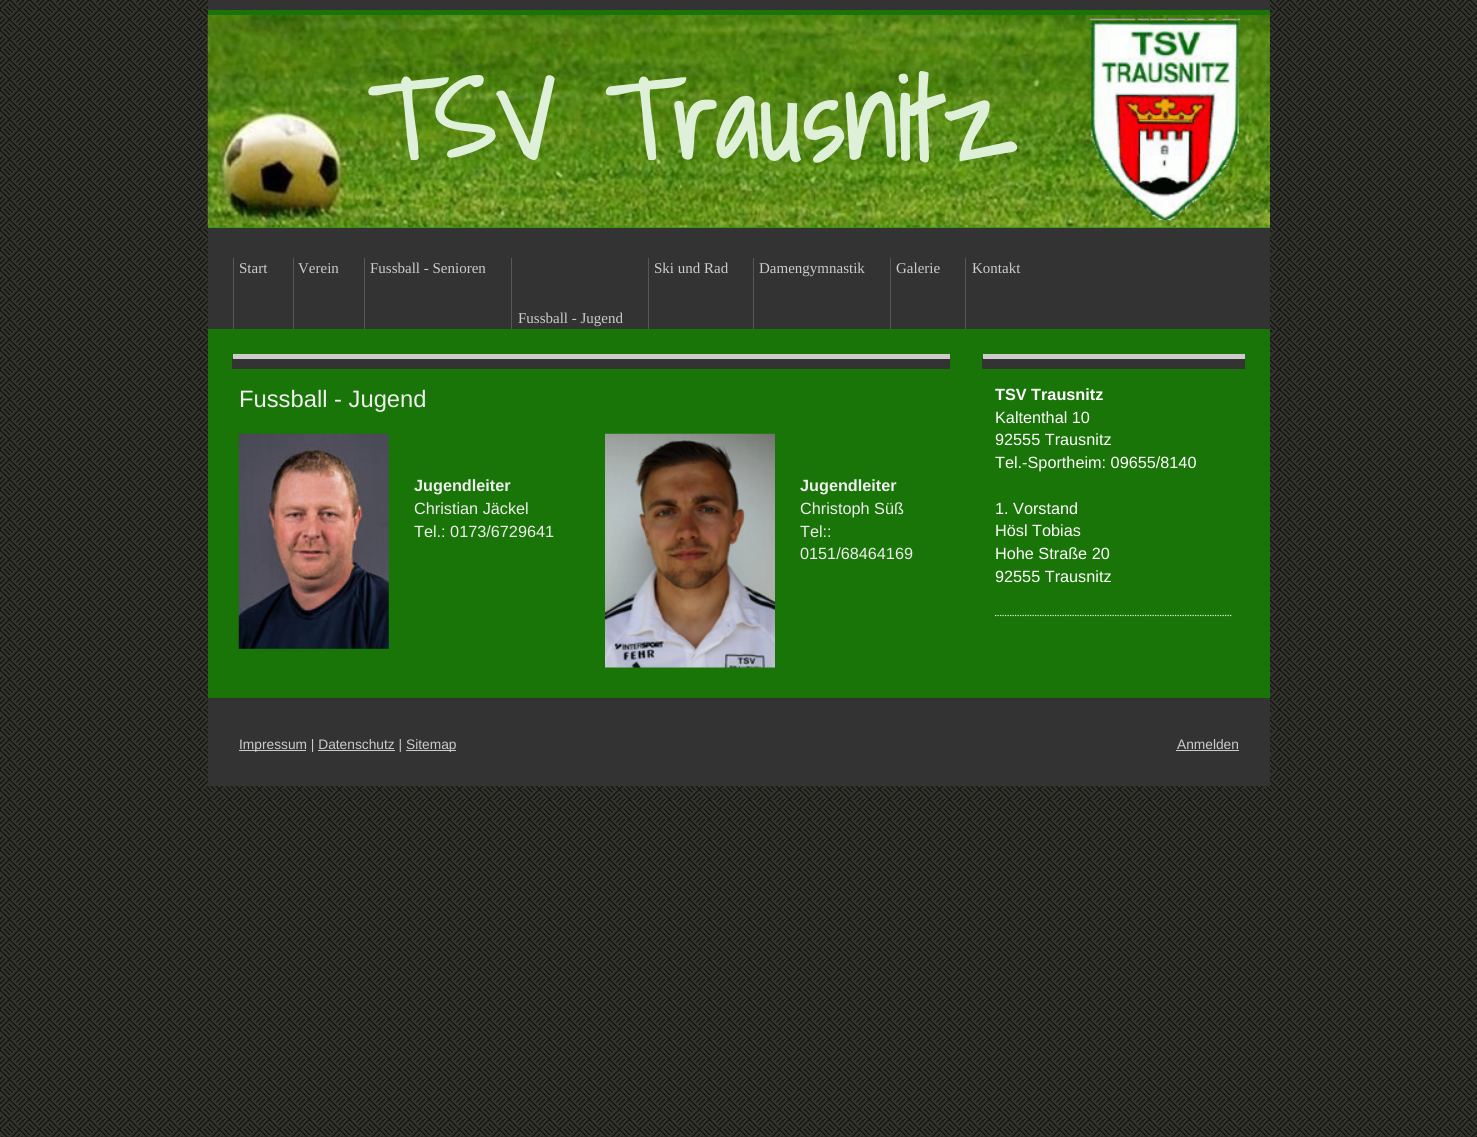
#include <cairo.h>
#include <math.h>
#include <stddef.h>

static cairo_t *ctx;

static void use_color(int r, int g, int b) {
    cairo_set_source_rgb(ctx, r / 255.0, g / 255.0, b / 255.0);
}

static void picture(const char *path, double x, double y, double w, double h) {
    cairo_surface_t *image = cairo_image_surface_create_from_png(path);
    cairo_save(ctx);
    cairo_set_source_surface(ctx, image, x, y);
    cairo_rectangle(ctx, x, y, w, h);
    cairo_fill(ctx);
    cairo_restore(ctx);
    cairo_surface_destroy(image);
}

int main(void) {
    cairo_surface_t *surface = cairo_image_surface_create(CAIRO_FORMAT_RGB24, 1477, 1137);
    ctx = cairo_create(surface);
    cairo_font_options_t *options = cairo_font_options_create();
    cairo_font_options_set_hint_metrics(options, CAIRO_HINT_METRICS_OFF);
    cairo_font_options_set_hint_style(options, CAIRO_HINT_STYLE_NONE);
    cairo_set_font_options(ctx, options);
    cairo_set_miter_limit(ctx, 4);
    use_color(53, 53, 47);
    cairo_paint(ctx);
    picture("img1.png", 0, 0, 1477, 1137);
    use_color(25, 117, 7);
    cairo_rectangle(ctx, 208, 10, 1062, 688);
    cairo_fill(ctx);
    use_color(51, 51, 51);
    cairo_rectangle(ctx, 208, 0, 1062, 10);
    cairo_fill(ctx);
    use_color(43, 146, 39);
    cairo_rectangle(ctx, 208, 227, 1062, 1);
    cairo_fill(ctx);
    picture("img2.png", 207, 15, 1063, 213);
    cairo_select_font_face(ctx, "Shadows Into Light", CAIRO_FONT_SLANT_NORMAL, CAIRO_FONT_WEIGHT_BOLD);
    cairo_set_font_size(ctx, 112.5);
    use_color(223, 240, 217);
    cairo_move_to(ctx, 367, 160);
    cairo_show_text(ctx, "TSV Trausnitz");
    picture("img3.png", 1090, 18, 150, 203);
    use_color(51, 51, 51);
    cairo_rectangle(ctx, 208, 228, 1062, 101);
    cairo_fill(ctx);
    use_color(88, 88, 88);
    cairo_rectangle(ctx, 233, 258, 1, 71);
    cairo_fill(ctx);
    cairo_select_font_face(ctx, "Liberation Serif", CAIRO_FONT_SLANT_NORMAL, CAIRO_FONT_WEIGHT_NORMAL);
    cairo_set_font_size(ctx, 15);
    use_color(204, 204, 204);
    cairo_move_to(ctx, 239, 273);
    cairo_show_text(ctx, "Start");
    use_color(88, 88, 88);
    cairo_rectangle(ctx, 293, 258, 1, 71);
    cairo_fill(ctx);
    use_color(204, 204, 204);
    cairo_move_to(ctx, 298, 273);
    cairo_show_text(ctx, "Verein");
    use_color(88, 88, 88);
    cairo_rectangle(ctx, 364, 258, 1, 71);
    cairo_fill(ctx);
    use_color(204, 204, 204);
    cairo_move_to(ctx, 370, 273);
    cairo_show_text(ctx, "Fussball - Senioren");
    use_color(88, 88, 88);
    cairo_rectangle(ctx, 648, 258, 1, 71);
    cairo_fill(ctx);
    use_color(204, 204, 204);
    cairo_move_to(ctx, 654, 273);
    cairo_show_text(ctx, "Ski und Rad");
    use_color(88, 88, 88);
    cairo_rectangle(ctx, 753, 258, 1, 71);
    cairo_fill(ctx);
    use_color(204, 204, 204);
    cairo_move_to(ctx, 759, 273);
    cairo_show_text(ctx, "Damengymnastik");
    use_color(88, 88, 88);
    cairo_rectangle(ctx, 890, 258, 1, 71);
    cairo_fill(ctx);
    use_color(204, 204, 204);
    cairo_move_to(ctx, 896, 273);
    cairo_show_text(ctx, "Galerie");
    use_color(88, 88, 88);
    cairo_rectangle(ctx, 965, 258, 1, 71);
    cairo_fill(ctx);
    use_color(204, 204, 204);
    cairo_move_to(ctx, 972, 273);
    cairo_show_text(ctx, "Kontakt");
    use_color(88, 88, 88);
    cairo_rectangle(ctx, 511, 258, 1, 71);
    cairo_fill(ctx);
    use_color(204, 204, 204);
    cairo_move_to(ctx, 518, 323);
    cairo_show_text(ctx, "Fussball - Jugend");
    use_color(51, 51, 51);
    cairo_rectangle(ctx, 232, 358, 718, 11);
    cairo_fill(ctx);
    use_color(204, 204, 204);
    cairo_rectangle(ctx, 233, 354, 717, 5);
    cairo_fill(ctx);
    cairo_select_font_face(ctx, "Liberation Sans", CAIRO_FONT_SLANT_NORMAL, CAIRO_FONT_WEIGHT_NORMAL);
    cairo_set_font_size(ctx, 23.75);
    use_color(238, 238, 238);
    cairo_move_to(ctx, 239, 407);
    cairo_show_text(ctx, "Fussball - Jugend");
    picture("img4.png", 238, 433, 151, 216);
    cairo_select_font_face(ctx, "Liberation Sans", CAIRO_FONT_SLANT_NORMAL, CAIRO_FONT_WEIGHT_BOLD);
    cairo_set_font_size(ctx, 16.25);
    cairo_move_to(ctx, 414, 491);
    cairo_show_text(ctx, "Jugendleiter");
    cairo_select_font_face(ctx, "Liberation Sans", CAIRO_FONT_SLANT_NORMAL, CAIRO_FONT_WEIGHT_NORMAL);
    cairo_move_to(ctx, 414, 514);
    cairo_show_text(ctx, "Christian Jäckel");
    cairo_move_to(ctx, 414, 537);
    cairo_show_text(ctx, "Tel.: 0173/6729641");
    picture("img5.png", 605, 433, 170, 235);
    cairo_select_font_face(ctx, "Liberation Sans", CAIRO_FONT_SLANT_NORMAL, CAIRO_FONT_WEIGHT_BOLD);
    cairo_move_to(ctx, 800, 491);
    cairo_show_text(ctx, "Jugendleiter");
    cairo_select_font_face(ctx, "Liberation Sans", CAIRO_FONT_SLANT_NORMAL, CAIRO_FONT_WEIGHT_NORMAL);
    cairo_move_to(ctx, 800, 514);
    cairo_show_text(ctx, "Christoph Süß");
    cairo_move_to(ctx, 800, 537);
    cairo_show_text(ctx, "Tel::");
    cairo_move_to(ctx, 800, 559);
    cairo_show_text(ctx, "0151/68464169");
    use_color(51, 51, 51);
    cairo_rectangle(ctx, 982, 358, 263, 11);
    cairo_fill(ctx);
    use_color(204, 204, 204);
    cairo_rectangle(ctx, 983, 354, 262, 5);
    cairo_fill(ctx);
    cairo_select_font_face(ctx, "Liberation Sans", CAIRO_FONT_SLANT_NORMAL, CAIRO_FONT_WEIGHT_BOLD);
    use_color(255, 255, 255);
    cairo_move_to(ctx, 995, 400);
    cairo_show_text(ctx, "TSV Trausnitz");
    cairo_select_font_face(ctx, "Liberation Sans", CAIRO_FONT_SLANT_NORMAL, CAIRO_FONT_WEIGHT_NORMAL);
    cairo_move_to(ctx, 995, 423);
    cairo_show_text(ctx, "Kaltenthal 10");
    cairo_move_to(ctx, 995, 445);
    cairo_show_text(ctx, "92555 Trausnitz");
    cairo_move_to(ctx, 995, 468);
    cairo_show_text(ctx, "Tel.-Sportheim: 09655/8140");
    cairo_move_to(ctx, 995, 514);
    cairo_show_text(ctx, "1. Vorstand");
    cairo_move_to(ctx, 995, 536);
    cairo_show_text(ctx, "Hösl Tobias");
    cairo_move_to(ctx, 995, 559);
    cairo_show_text(ctx, "Hohe Straße 20");
    cairo_move_to(ctx, 995, 582);
    cairo_show_text(ctx, "92555 Trausnitz");
    cairo_new_path(ctx);
    cairo_move_to(ctx, 995, 615.5);
    cairo_line_to(ctx, 1232.5, 615.5);
    use_color(238, 238, 238);
    cairo_set_line_width(ctx, 1.2);
    cairo_set_dash(ctx, (double[]){1.25, 1.25}, 2, 0);
    cairo_stroke(ctx);
    use_color(51, 51, 51);
    cairo_rectangle(ctx, 208, 698, 1062, 88);
    cairo_fill(ctx);
    use_color(204, 204, 204);
    cairo_rectangle(ctx, 239, 750, 67, 1);
    cairo_fill(ctx);
    cairo_set_font_size(ctx, 13.75);
    cairo_move_to(ctx, 239, 749);
    cairo_show_text(ctx, "Impressum | Datenschutz |");
    cairo_rectangle(ctx, 406, 750, 50, 1);
    cairo_fill(ctx);
    cairo_move_to(ctx, 406, 749);
    cairo_show_text(ctx, "Sitemap");
    cairo_rectangle(ctx, 318, 750, 77, 1);
    cairo_fill(ctx);
    cairo_move_to(ctx, 1177, 749);
    cairo_show_text(ctx, "Anmelden");
    cairo_rectangle(ctx, 1176, 750, 63, 1);
    cairo_fill(ctx);
    cairo_surface_write_to_png(surface, "result.png");
    cairo_font_options_destroy(options);
    cairo_destroy(ctx);
    cairo_surface_destroy(surface);
    return 0;
}
